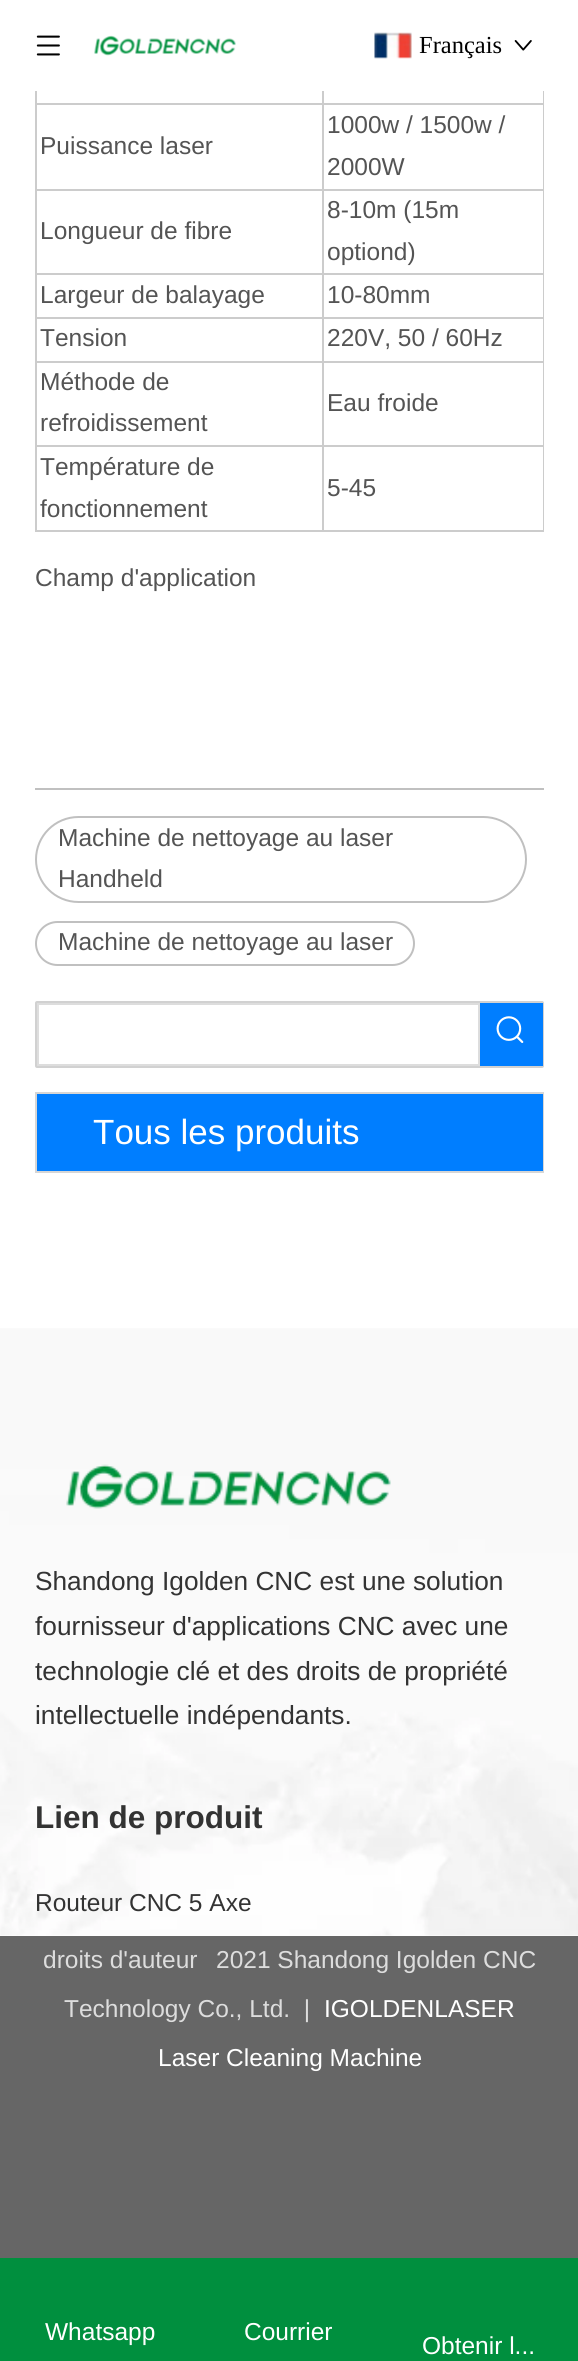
#include <cairo.h>
#include <math.h>
#include <stddef.h>

static cairo_t *ctx;

static void use_color(int r, int g, int b) {
    cairo_set_source_rgb(ctx, r / 255.0, g / 255.0, b / 255.0);
}

static void round_rect(double x, double y, double w, double h, double r) {
    cairo_new_sub_path(ctx);
    cairo_arc(ctx, x + w - r, y + h - r, r, 0, M_PI / 2);
    cairo_arc(ctx, x + r, y + h - r, r, M_PI / 2, M_PI);
    cairo_arc(ctx, x + r, y + r, r, M_PI, 1.5 * M_PI);
    cairo_arc(ctx, x + w - r, y + r, r, 1.5 * M_PI, 2 * M_PI);
    cairo_close_path(ctx);
}

static void picture(const char *path, double x, double y, double w, double h) {
    cairo_surface_t *image = cairo_image_surface_create_from_png(path);
    cairo_save(ctx);
    cairo_set_source_surface(ctx, image, x, y);
    cairo_rectangle(ctx, x, y, w, h);
    cairo_fill(ctx);
    cairo_restore(ctx);
    cairo_surface_destroy(image);
}

int main(void) {
    cairo_surface_t *surface = cairo_image_surface_create(CAIRO_FORMAT_RGB24, 578, 2361);
    ctx = cairo_create(surface);
    cairo_font_options_t *options = cairo_font_options_create();
    cairo_font_options_set_hint_metrics(options, CAIRO_HINT_METRICS_OFF);
    cairo_font_options_set_hint_style(options, CAIRO_HINT_STYLE_NONE);
    cairo_set_font_options(ctx, options);
    cairo_set_miter_limit(ctx, 4);
    use_color(255, 255, 255);
    cairo_paint(ctx);
    picture("img1.png", 36, 35, 24, 21);
    picture("img2.png", 94, 35, 142, 21);
    picture("img3.png", 374, 32, 38, 27);
    cairo_select_font_face(ctx, "Liberation Serif", CAIRO_FONT_SLANT_NORMAL, CAIRO_FONT_WEIGHT_NORMAL);
    cairo_set_font_size(ctx, 24.5);
    use_color(0, 0, 0);
    cairo_move_to(ctx, 419, 53);
    cairo_show_text(ctx, "Français");
    picture("img4.png", 514, 40, 18, 11);
    use_color(204, 204, 204);
    cairo_rectangle(ctx, 543, 91, 1, 441);
    cairo_fill(ctx);
    cairo_rectangle(ctx, 35, 530, 509, 2);
    cairo_fill(ctx);
    cairo_rectangle(ctx, 35, 91, 2, 441);
    cairo_fill(ctx);
    cairo_rectangle(ctx, 322, 103, 222, 2);
    cairo_fill(ctx);
    cairo_rectangle(ctx, 322, 189, 222, 2);
    cairo_fill(ctx);
    cairo_rectangle(ctx, 322, 273, 222, 2);
    cairo_fill(ctx);
    cairo_rectangle(ctx, 322, 317, 222, 2);
    cairo_fill(ctx);
    cairo_rectangle(ctx, 322, 361, 222, 2);
    cairo_fill(ctx);
    cairo_rectangle(ctx, 322, 445, 222, 2);
    cairo_fill(ctx);
    cairo_rectangle(ctx, 322, 445, 2, 87);
    cairo_fill(ctx);
    cairo_rectangle(ctx, 35, 445, 289, 2);
    cairo_fill(ctx);
    cairo_rectangle(ctx, 322, 361, 2, 85);
    cairo_fill(ctx);
    cairo_rectangle(ctx, 35, 361, 289, 2);
    cairo_fill(ctx);
    cairo_rectangle(ctx, 322, 317, 2, 45);
    cairo_fill(ctx);
    cairo_rectangle(ctx, 35, 317, 289, 2);
    cairo_fill(ctx);
    cairo_rectangle(ctx, 322, 273, 2, 46);
    cairo_fill(ctx);
    cairo_rectangle(ctx, 35, 273, 289, 2);
    cairo_fill(ctx);
    cairo_rectangle(ctx, 322, 189, 2, 86);
    cairo_fill(ctx);
    cairo_rectangle(ctx, 35, 189, 289, 2);
    cairo_fill(ctx);
    cairo_rectangle(ctx, 322, 103, 2, 88);
    cairo_fill(ctx);
    cairo_rectangle(ctx, 35, 103, 289, 2);
    cairo_fill(ctx);
    cairo_rectangle(ctx, 322, 91, 2, 14);
    cairo_fill(ctx);
    cairo_select_font_face(ctx, "Liberation Sans", CAIRO_FONT_SLANT_NORMAL, CAIRO_FONT_WEIGHT_NORMAL);
    use_color(84, 84, 84);
    cairo_move_to(ctx, 40, 154);
    cairo_show_text(ctx, "Puissance laser");
    cairo_move_to(ctx, 327, 133);
    cairo_show_text(ctx, "1000w / 1500w /");
    cairo_move_to(ctx, 327, 175);
    cairo_show_text(ctx, "2000W");
    cairo_move_to(ctx, 40, 239);
    cairo_show_text(ctx, "Longueur de fibre");
    cairo_move_to(ctx, 327, 218);
    cairo_show_text(ctx, "8-10m (15m");
    cairo_move_to(ctx, 327, 260);
    cairo_show_text(ctx, "optiond)");
    cairo_move_to(ctx, 40, 303);
    cairo_show_text(ctx, "Largeur de balayage");
    cairo_move_to(ctx, 327, 303);
    cairo_show_text(ctx, "10-80mm");
    cairo_move_to(ctx, 40, 346);
    cairo_show_text(ctx, "Tension");
    cairo_move_to(ctx, 327, 346);
    cairo_show_text(ctx, "220V, 50 / 60Hz");
    cairo_move_to(ctx, 40, 390);
    cairo_show_text(ctx, "Méthode de");
    cairo_move_to(ctx, 40, 431);
    cairo_show_text(ctx, "refroidissement");
    cairo_move_to(ctx, 327, 411);
    cairo_show_text(ctx, "Eau froide");
    cairo_move_to(ctx, 40, 475);
    cairo_show_text(ctx, "Température de");
    cairo_move_to(ctx, 40, 517);
    cairo_show_text(ctx, "fonctionnement");
    cairo_move_to(ctx, 327, 496);
    cairo_show_text(ctx, "5-45");
    cairo_move_to(ctx, 35, 586);
    cairo_show_text(ctx, "Champ d'application");
    use_color(192, 192, 192);
    cairo_rectangle(ctx, 35, 788, 509, 2);
    cairo_fill(ctx);
    round_rect(36, 817, 490, 85, 42.5);
    cairo_stroke(ctx);
    use_color(84, 84, 84);
    cairo_move_to(ctx, 58, 846);
    cairo_show_text(ctx, "Machine de nettoyage au laser");
    cairo_move_to(ctx, 58, 887);
    cairo_show_text(ctx, "Handheld");
    round_rect(36, 922, 378, 43, 21.5);
    use_color(192, 192, 192);
    cairo_stroke(ctx);
    use_color(84, 84, 84);
    cairo_move_to(ctx, 58, 950);
    cairo_show_text(ctx, "Machine de nettoyage au laser");
    round_rect(36, 1002, 507, 65, 1);
    use_color(209, 209, 209);
    cairo_stroke(ctx);
    cairo_rectangle(ctx, 38, 1004, 441, 61);
    use_color(221, 221, 221);
    cairo_stroke(ctx);
    use_color(0, 126, 255);
    cairo_rectangle(ctx, 480, 1003, 63, 63);
    cairo_fill(ctx);
    picture("img5.png", 496, 1016, 28, 27);
    cairo_rectangle(ctx, 36, 1093, 507, 79);
    use_color(214, 214, 214);
    cairo_stroke(ctx);
    use_color(0, 126, 255);
    cairo_rectangle(ctx, 37, 1094, 506, 77);
    cairo_fill(ctx);
    cairo_set_font_size(ctx, 35);
    use_color(255, 255, 255);
    cairo_move_to(ctx, 93, 1144);
    cairo_show_text(ctx, "Tous les produits");
    picture("img6.png", 0, 1328, 578, 608);
    picture("img7.png", 66, 1464, 325, 45);
    cairo_set_font_size(ctx, 26.25);
    use_color(51, 51, 51);
    cairo_move_to(ctx, 35, 1590);
    cairo_show_text(ctx, "Shandong Igolden CNC est une solution");
    cairo_move_to(ctx, 35, 1635);
    cairo_show_text(ctx, "fournisseur d'applications CNC avec une");
    cairo_move_to(ctx, 35, 1680);
    cairo_show_text(ctx, "technologie clé et des droits de propriété");
    cairo_move_to(ctx, 35, 1724);
    cairo_show_text(ctx, "intellectuelle indépendants.");
    cairo_select_font_face(ctx, "Liberation Sans", CAIRO_FONT_SLANT_NORMAL, CAIRO_FONT_WEIGHT_BOLD);
    cairo_set_font_size(ctx, 31.5);
    cairo_move_to(ctx, 35, 1828);
    cairo_show_text(ctx, "Lien de produit");
    cairo_select_font_face(ctx, "Liberation Sans", CAIRO_FONT_SLANT_NORMAL, CAIRO_FONT_WEIGHT_NORMAL);
    cairo_set_font_size(ctx, 24.5);
    cairo_move_to(ctx, 35, 1911);
    cairo_show_text(ctx, "Routeur CNC 5 Axe");
    use_color(102, 102, 102);
    cairo_rectangle(ctx, 0, 1936, 578, 322);
    cairo_fill(ctx);
    use_color(221, 221, 221);
    cairo_move_to(ctx, 43, 1968);
    cairo_show_text(ctx, "droits d'auteur");
    cairo_move_to(ctx, 216, 1968);
    cairo_show_text(ctx, "2021 Shandong Igolden CNC");
    cairo_move_to(ctx, 64, 2017);
    cairo_show_text(ctx, "Technology Co., Ltd.  |");
    use_color(255, 255, 255);
    cairo_move_to(ctx, 324, 2017);
    cairo_show_text(ctx, "IGOLDENLASER");
    cairo_move_to(ctx, 158, 2066);
    cairo_show_text(ctx, "Laser Cleaning Machine");
    use_color(0, 143, 62);
    cairo_rectangle(ctx, 0, 2258, 578, 103);
    cairo_fill(ctx);
    use_color(255, 255, 255);
    cairo_move_to(ctx, 45, 2340);
    cairo_show_text(ctx, "Whatsapp");
    cairo_move_to(ctx, 244, 2340);
    cairo_show_text(ctx, "Courrier");
    cairo_move_to(ctx, 422, 2354);
    cairo_show_text(ctx, "Obtenir l...");
    cairo_surface_write_to_png(surface, "result.png");
    cairo_font_options_destroy(options);
    cairo_destroy(ctx);
    cairo_surface_destroy(surface);
    return 0;
}
